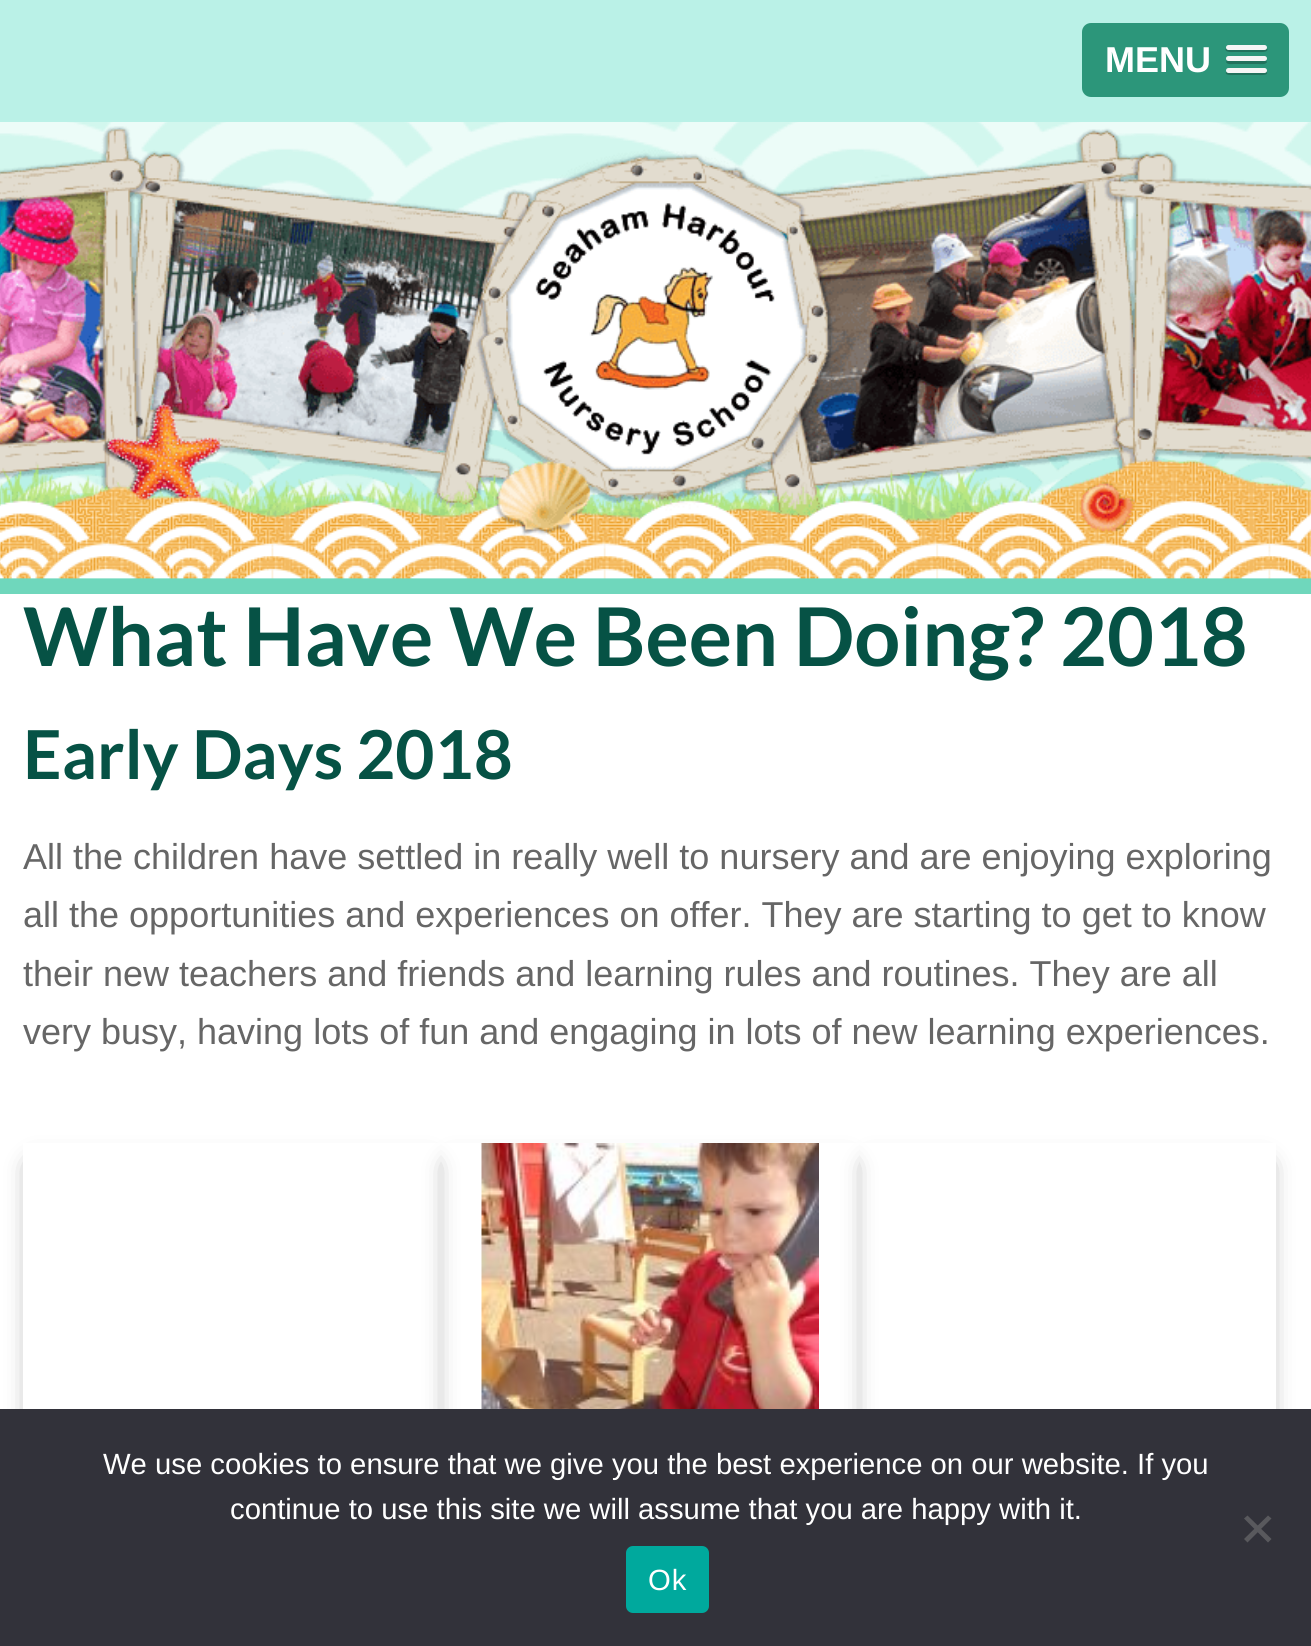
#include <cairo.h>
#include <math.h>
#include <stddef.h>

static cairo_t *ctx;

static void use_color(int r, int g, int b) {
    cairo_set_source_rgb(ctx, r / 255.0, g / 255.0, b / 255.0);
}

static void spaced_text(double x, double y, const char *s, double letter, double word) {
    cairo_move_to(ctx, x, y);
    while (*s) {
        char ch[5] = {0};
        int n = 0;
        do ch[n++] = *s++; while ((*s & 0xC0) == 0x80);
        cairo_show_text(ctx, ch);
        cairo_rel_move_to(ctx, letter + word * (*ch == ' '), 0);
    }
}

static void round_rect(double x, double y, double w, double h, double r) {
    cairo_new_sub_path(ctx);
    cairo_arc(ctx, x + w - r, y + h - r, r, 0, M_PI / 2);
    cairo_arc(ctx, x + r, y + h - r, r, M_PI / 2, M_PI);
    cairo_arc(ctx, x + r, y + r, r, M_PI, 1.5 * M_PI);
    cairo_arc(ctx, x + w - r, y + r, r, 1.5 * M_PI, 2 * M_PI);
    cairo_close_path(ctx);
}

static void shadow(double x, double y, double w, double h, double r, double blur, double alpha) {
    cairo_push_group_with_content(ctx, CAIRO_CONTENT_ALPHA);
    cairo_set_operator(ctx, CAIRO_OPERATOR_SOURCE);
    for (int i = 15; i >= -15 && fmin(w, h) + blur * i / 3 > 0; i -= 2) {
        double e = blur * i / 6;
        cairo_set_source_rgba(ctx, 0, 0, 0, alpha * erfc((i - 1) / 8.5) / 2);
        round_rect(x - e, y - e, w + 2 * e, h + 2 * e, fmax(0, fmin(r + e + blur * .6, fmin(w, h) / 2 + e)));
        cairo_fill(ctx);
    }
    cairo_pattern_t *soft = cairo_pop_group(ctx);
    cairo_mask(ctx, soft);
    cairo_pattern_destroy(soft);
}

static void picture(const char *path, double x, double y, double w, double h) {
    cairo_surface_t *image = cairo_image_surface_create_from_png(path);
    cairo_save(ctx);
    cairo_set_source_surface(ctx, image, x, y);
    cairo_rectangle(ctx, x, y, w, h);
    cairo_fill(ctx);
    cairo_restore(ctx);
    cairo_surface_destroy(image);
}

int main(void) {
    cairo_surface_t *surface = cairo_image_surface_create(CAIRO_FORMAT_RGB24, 1311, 1646);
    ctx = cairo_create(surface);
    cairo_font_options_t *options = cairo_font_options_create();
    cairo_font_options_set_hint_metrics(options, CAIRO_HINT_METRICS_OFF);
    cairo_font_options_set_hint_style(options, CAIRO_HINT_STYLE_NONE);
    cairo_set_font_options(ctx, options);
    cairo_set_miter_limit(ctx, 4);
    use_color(236, 252, 248);
    cairo_paint(ctx);
    picture("img1.png", 0, 122, 1311, 410);
    use_color(186, 241, 231);
    cairo_rectangle(ctx, 0, 0, 1311, 122);
    cairo_fill(ctx);
    use_color(44, 150, 122);
    round_rect(1082, 23, 207, 74, 9);
    cairo_fill(ctx);
    cairo_select_font_face(ctx, "Liberation Sans", CAIRO_FONT_SLANT_NORMAL, CAIRO_FONT_WEIGHT_BOLD);
    cairo_set_font_size(ctx, 36);
    use_color(255, 255, 255);
    cairo_move_to(ctx, 1105, 72);
    cairo_show_text(ctx, "MENU");
    use_color(33, 113, 92);
    cairo_new_path(ctx);
    cairo_move_to(ctx, 1226, 48);
    cairo_curve_to(ctx, 1223, 53, 1234, 52, 1234, 52);
    cairo_line_to(ctx, 1258, 52);
    cairo_curve_to(ctx, 1259, 52, 1270, 53, 1267, 48);
    cairo_curve_to(ctx, 1266, 49, 1265, 50, 1264, 50);
    cairo_line_to(ctx, 1228, 50);
    cairo_curve_to(ctx, 1228, 50, 1227, 49, 1226, 48);
    cairo_close_path(ctx);
    cairo_fill(ctx);
    use_color(245, 245, 245);
    round_rect(1226, 45, 41, 5, 2.5);
    cairo_fill(ctx);
    use_color(33, 113, 92);
    cairo_new_path(ctx);
    cairo_move_to(ctx, 1227, 60);
    cairo_line_to(ctx, 1226, 62);
    cairo_curve_to(ctx, 1227, 65, 1233, 64, 1234, 64);
    cairo_line_to(ctx, 1258, 64);
    cairo_curve_to(ctx, 1260, 64, 1266, 65, 1267, 62);
    cairo_line_to(ctx, 1266, 60);
    cairo_line_to(ctx, 1265, 61);
    cairo_line_to(ctx, 1228, 61);
    cairo_close_path(ctx);
    cairo_fill(ctx);
    use_color(245, 245, 245);
    round_rect(1226, 56, 41, 5, 2.5);
    cairo_fill(ctx);
    use_color(33, 113, 92);
    cairo_new_path(ctx);
    cairo_move_to(ctx, 1227, 71);
    cairo_curve_to(ctx, 1222, 76, 1234, 75, 1234, 75);
    cairo_line_to(ctx, 1258, 75);
    cairo_curve_to(ctx, 1259, 75, 1271, 76, 1266, 71);
    cairo_line_to(ctx, 1265, 72);
    cairo_line_to(ctx, 1228, 72);
    cairo_close_path(ctx);
    cairo_fill(ctx);
    use_color(245, 245, 245);
    round_rect(1226, 68, 41, 5, 2.5);
    cairo_fill(ctx);
    picture("img2.png", 0, 126, 1311, 468);
    use_color(255, 255, 255);
    cairo_rectangle(ctx, 0, 594, 1311, 815);
    cairo_fill(ctx);
    cairo_select_font_face(ctx, "Lato", CAIRO_FONT_SLANT_NORMAL, CAIRO_FONT_WEIGHT_BOLD);
    cairo_set_font_size(ctx, 81);
    use_color(6, 82, 69);
    cairo_move_to(ctx, 23, 666);
    cairo_show_text(ctx, "What Have We Been Doing? 2018");
    cairo_set_font_size(ctx, 67.5);
    cairo_move_to(ctx, 23, 779);
    cairo_show_text(ctx, "Early Days 2018");
    cairo_select_font_face(ctx, "Liberation Sans", CAIRO_FONT_SLANT_NORMAL, CAIRO_FONT_WEIGHT_NORMAL);
    cairo_set_font_size(ctx, 36);
    use_color(102, 102, 102);
    cairo_move_to(ctx, 23, 869);
    cairo_show_text(ctx, "All the children have settled in really well to nursery and are enjoying exploring");
    cairo_move_to(ctx, 23, 927);
    cairo_show_text(ctx, "all the opportunities and experiences on offer. They are starting to get to know");
    cairo_move_to(ctx, 23, 986);
    cairo_show_text(ctx, "their new teachers and friends and learning rules and routines. They are all");
    cairo_move_to(ctx, 23, 1044);
    cairo_show_text(ctx, "very busy, having lots of fun and engaging in lots of new learning experiences.");
    cairo_save(ctx);
    cairo_set_fill_rule(ctx, CAIRO_FILL_RULE_EVEN_ODD);
    cairo_new_path(ctx);
    cairo_move_to(ctx, 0, 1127);
    cairo_line_to(ctx, 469, 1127);
    cairo_line_to(ctx, 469, 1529);
    cairo_line_to(ctx, 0, 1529);
    cairo_close_path(ctx);
    cairo_move_to(ctx, 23, 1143);
    cairo_line_to(ctx, 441, 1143);
    cairo_line_to(ctx, 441, 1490);
    cairo_line_to(ctx, 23, 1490);
    cairo_close_path(ctx);
    cairo_clip(ctx);
    use_color(0, 0, 0);
    shadow(34, 1166, 396, 324, 0, 12.5, 0.56);
    cairo_restore(ctx);
    cairo_save(ctx);
    cairo_set_fill_rule(ctx, CAIRO_FILL_RULE_EVEN_ODD);
    cairo_new_path(ctx);
    cairo_move_to(ctx, 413, 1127);
    cairo_line_to(ctx, 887, 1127);
    cairo_line_to(ctx, 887, 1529);
    cairo_line_to(ctx, 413, 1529);
    cairo_close_path(ctx);
    cairo_move_to(ctx, 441, 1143);
    cairo_line_to(ctx, 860, 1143);
    cairo_line_to(ctx, 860, 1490);
    cairo_line_to(ctx, 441, 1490);
    cairo_close_path(ctx);
    cairo_clip(ctx);
    use_color(0, 0, 0);
    shadow(452, 1166, 396, 324, 0, 12.5, 0.56);
    cairo_restore(ctx);
    picture("img3.png", 481, 1143, 338, 266);
    cairo_save(ctx);
    cairo_set_fill_rule(ctx, CAIRO_FILL_RULE_EVEN_ODD);
    cairo_new_path(ctx);
    cairo_move_to(ctx, 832, 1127);
    cairo_line_to(ctx, 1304, 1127);
    cairo_line_to(ctx, 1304, 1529);
    cairo_line_to(ctx, 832, 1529);
    cairo_close_path(ctx);
    cairo_move_to(ctx, 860, 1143);
    cairo_line_to(ctx, 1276, 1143);
    cairo_line_to(ctx, 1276, 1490);
    cairo_line_to(ctx, 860, 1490);
    cairo_close_path(ctx);
    cairo_clip(ctx);
    use_color(0, 0, 0);
    shadow(871, 1166, 394, 324, 0, 12.5, 0.56);
    cairo_restore(ctx);
    use_color(50, 50, 58);
    cairo_rectangle(ctx, 0, 1409, 1311, 237);
    cairo_fill(ctx);
    cairo_set_font_size(ctx, 29.25);
    use_color(255, 255, 255);
    cairo_move_to(ctx, 103, 1474);
    cairo_show_text(ctx, "We use cookies to ensure that we give you the best experience on our website. If you");
    cairo_move_to(ctx, 230, 1519);
    cairo_show_text(ctx, "continue to use this site we will assume that you are happy with it.");
    use_color(89, 89, 93);
    cairo_new_path(ctx);
    cairo_move_to(ctx, 1268, 1515.5);
    cairo_line_to(ctx, 1271.5, 1518.5);
    cairo_line_to(ctx, 1247.5, 1542.5);
    cairo_line_to(ctx, 1244, 1539);
    cairo_close_path(ctx);
    cairo_fill(ctx);
    cairo_new_path(ctx);
    cairo_move_to(ctx, 1244, 1518.5);
    cairo_line_to(ctx, 1247.5, 1515.5);
    cairo_line_to(ctx, 1271.5, 1539);
    cairo_line_to(ctx, 1268, 1542.5);
    cairo_close_path(ctx);
    cairo_fill(ctx);
    use_color(0, 169, 157);
    round_rect(626, 1546, 83, 67, 7);
    cairo_fill(ctx);
    use_color(255, 255, 255);
    spaced_text(648, 1590, "Ok", 1, 0);
    cairo_surface_write_to_png(surface, "result.png");
    cairo_font_options_destroy(options);
    cairo_destroy(ctx);
    cairo_surface_destroy(surface);
    return 0;
}
